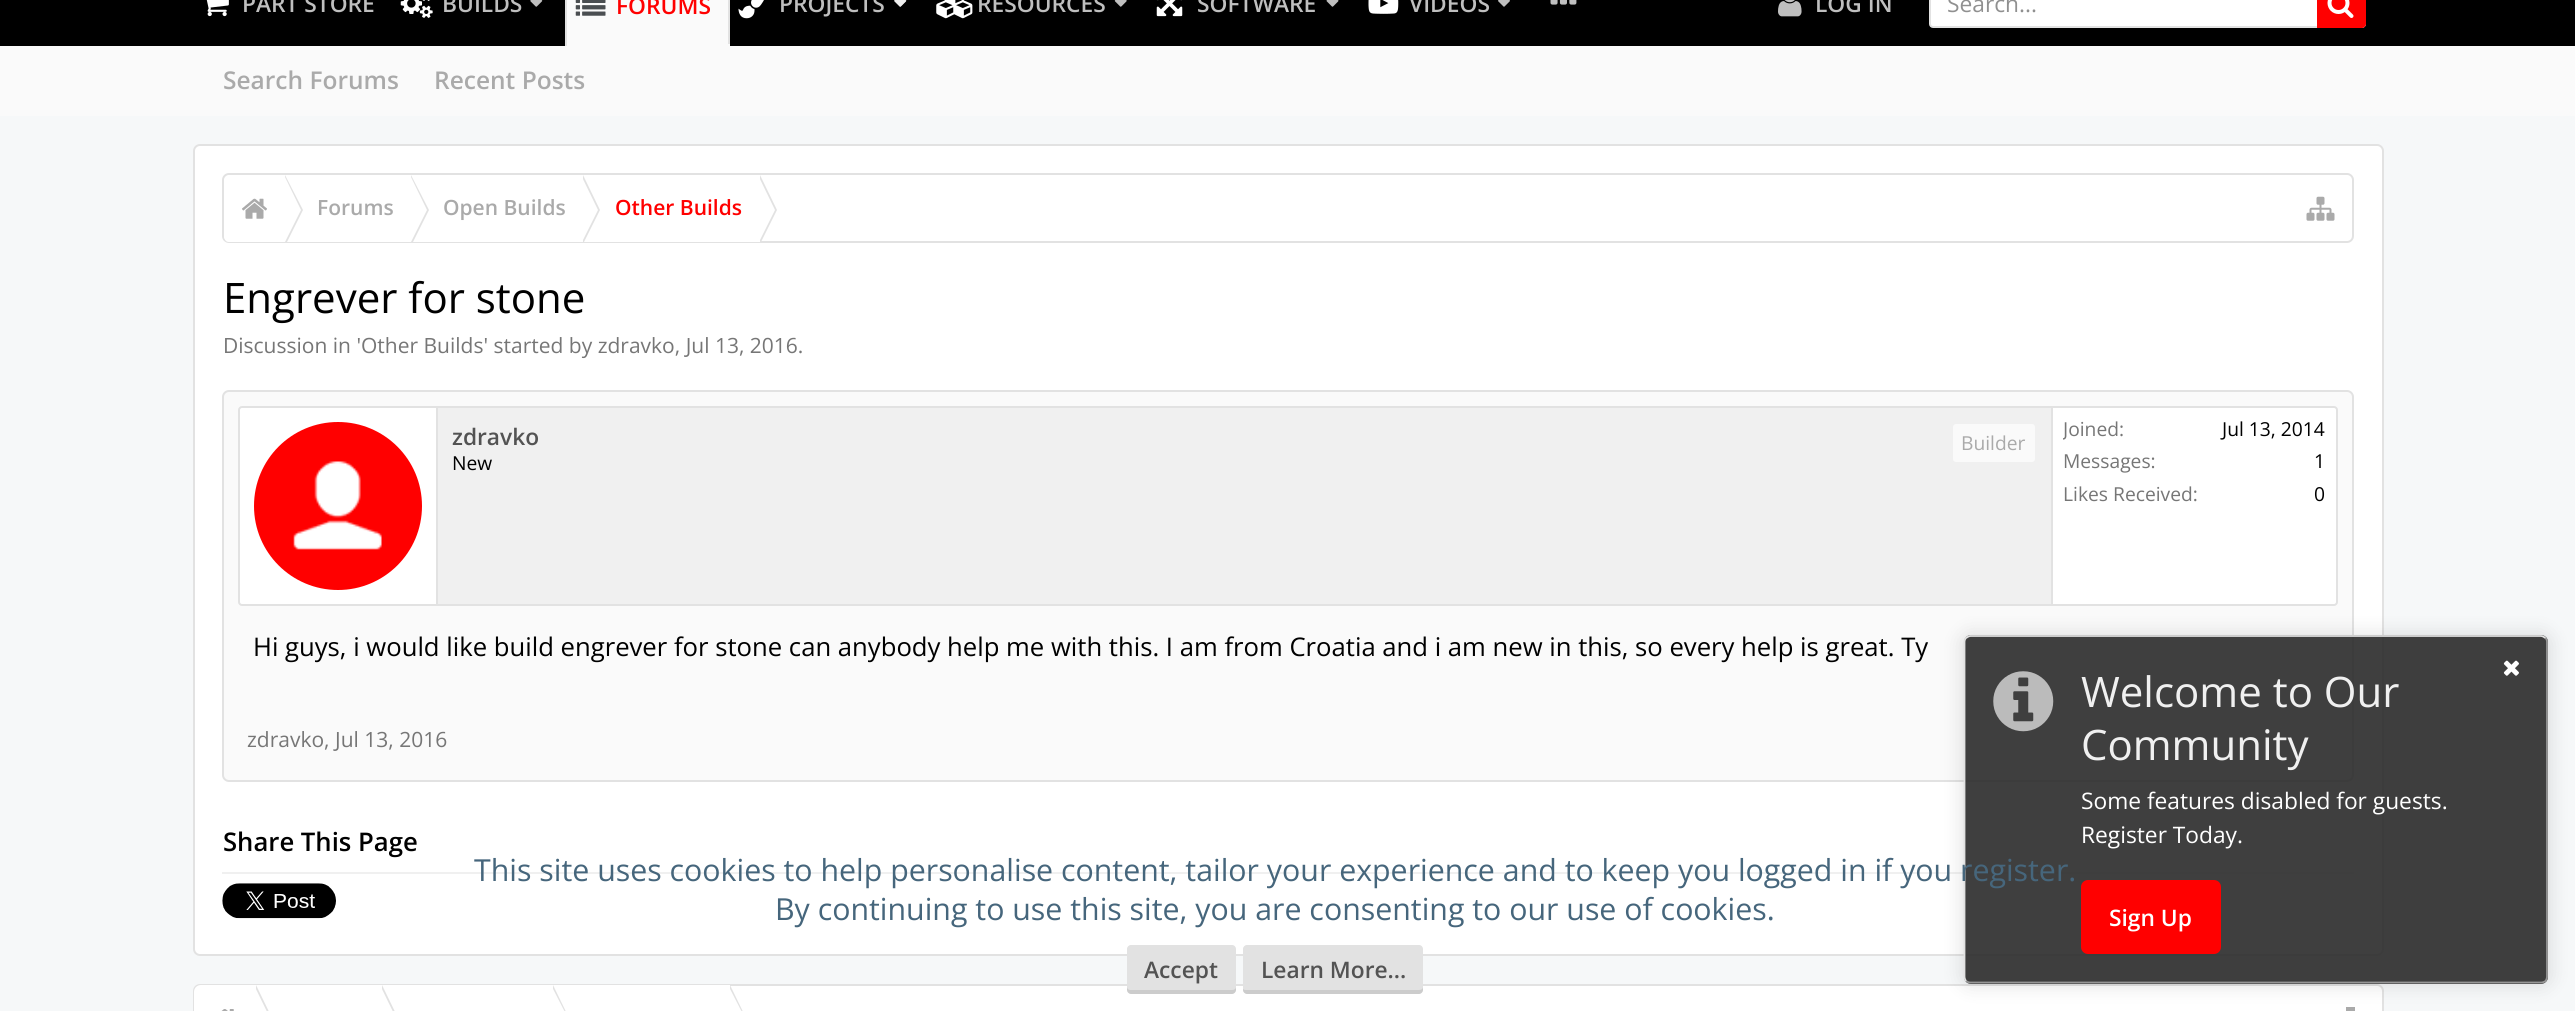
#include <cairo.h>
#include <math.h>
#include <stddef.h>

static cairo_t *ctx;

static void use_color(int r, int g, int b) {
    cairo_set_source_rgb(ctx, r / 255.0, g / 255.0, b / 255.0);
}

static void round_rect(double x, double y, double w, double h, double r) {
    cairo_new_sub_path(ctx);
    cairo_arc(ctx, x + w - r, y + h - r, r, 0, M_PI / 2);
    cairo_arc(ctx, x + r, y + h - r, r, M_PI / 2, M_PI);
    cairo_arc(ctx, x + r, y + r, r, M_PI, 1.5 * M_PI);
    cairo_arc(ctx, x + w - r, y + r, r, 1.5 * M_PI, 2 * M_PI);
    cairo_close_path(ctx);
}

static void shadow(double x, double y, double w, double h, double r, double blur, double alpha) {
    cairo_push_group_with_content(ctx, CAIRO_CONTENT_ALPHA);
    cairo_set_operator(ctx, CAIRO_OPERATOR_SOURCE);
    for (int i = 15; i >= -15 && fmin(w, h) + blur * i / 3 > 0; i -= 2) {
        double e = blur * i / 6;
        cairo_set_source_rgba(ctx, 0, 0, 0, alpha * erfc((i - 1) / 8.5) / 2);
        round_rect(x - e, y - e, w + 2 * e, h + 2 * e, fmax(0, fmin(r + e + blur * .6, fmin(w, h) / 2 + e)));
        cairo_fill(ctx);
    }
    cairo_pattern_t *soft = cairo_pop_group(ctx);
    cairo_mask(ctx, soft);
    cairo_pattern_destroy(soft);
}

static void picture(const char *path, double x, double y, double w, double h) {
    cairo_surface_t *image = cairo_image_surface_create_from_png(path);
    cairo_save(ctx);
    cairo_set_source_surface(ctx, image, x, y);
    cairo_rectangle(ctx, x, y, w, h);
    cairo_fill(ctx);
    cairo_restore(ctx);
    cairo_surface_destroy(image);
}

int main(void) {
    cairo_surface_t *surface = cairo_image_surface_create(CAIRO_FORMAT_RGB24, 2575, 1011);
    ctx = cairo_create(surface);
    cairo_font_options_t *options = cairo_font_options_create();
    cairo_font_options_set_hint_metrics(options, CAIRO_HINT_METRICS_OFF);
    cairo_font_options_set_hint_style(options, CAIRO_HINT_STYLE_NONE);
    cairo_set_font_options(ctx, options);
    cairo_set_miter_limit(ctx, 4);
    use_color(246, 248, 249);
    cairo_paint(ctx);
    use_color(0, 0, 0);
    cairo_rectangle(ctx, 0, 0, 2575, 46);
    cairo_fill(ctx);
    use_color(250, 250, 250);
    cairo_rectangle(ctx, 567, 0, 161, 44);
    cairo_fill(ctx);
    use_color(226, 226, 226);
    cairo_rectangle(ctx, 728, 0, 2, 46);
    cairo_fill(ctx);
    use_color(250, 250, 250);
    cairo_rectangle(ctx, 565, 44, 165, 2);
    cairo_fill(ctx);
    use_color(226, 226, 226);
    cairo_rectangle(ctx, 565, 0, 2, 46);
    cairo_fill(ctx);
    picture("img1.png", 575, 0, 31, 16);
    cairo_select_font_face(ctx, "Open Sans SemiBold", CAIRO_FONT_SLANT_NORMAL, CAIRO_FONT_WEIGHT_NORMAL);
    cairo_set_font_size(ctx, 22.75);
    use_color(255, 0, 0);
    cairo_move_to(ctx, 616, 14);
    cairo_show_text(ctx, "FORUMS");
    use_color(250, 250, 250);
    cairo_rectangle(ctx, 0, 46, 2575, 70);
    cairo_fill(ctx);
    cairo_set_font_size(ctx, 24.5);
    use_color(170, 170, 170);
    cairo_move_to(ctx, 223, 89);
    cairo_show_text(ctx, "Search Forums");
    cairo_move_to(ctx, 434, 89);
    cairo_show_text(ctx, "Recent Posts");
    picture("img2.png", 206, 0, 23, 17);
    cairo_set_font_size(ctx, 22.75);
    use_color(191, 191, 191);
    cairo_move_to(ctx, 242, 12);
    cairo_show_text(ctx, "PART STORE");
    picture("img3.png", 400, 0, 33, 18);
    cairo_move_to(ctx, 442, 12);
    cairo_show_text(ctx, "BUILDS");
    picture("img4.png", 530, 0, 13, 7);
    picture("img5.png", 738, 0, 26, 19);
    cairo_move_to(ctx, 779, 12);
    cairo_show_text(ctx, "PROJECTS");
    picture("img4.png", 894, 0, 13, 7);
    picture("img6.png", 894, 0, 13, 7);
    picture("img7.png", 936, 0, 37, 19);
    cairo_move_to(ctx, 977, 12);
    cairo_show_text(ctx, "RESOURCES");
    picture("img8.png", 1114, 0, 13, 7);
    picture("img9.png", 1156, 0, 27, 17);
    cairo_move_to(ctx, 1197, 12);
    cairo_show_text(ctx, "SOFTWARE");
    picture("img10.png", 1326, 0, 13, 7);
    picture("img11.png", 1368, 0, 31, 14);
    cairo_move_to(ctx, 1409, 12);
    cairo_show_text(ctx, "VIDEOS");
    picture("img12.png", 1498, 0, 12, 7);
    picture("img13.png", 1550, 0, 27, 5);
    picture("img14.png", 1778, 0, 24, 17);
    cairo_move_to(ctx, 1815, 12);
    cairo_show_text(ctx, "LOG IN");
    use_color(255, 255, 255);
    round_rect(1930, -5, 435, 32, 3);
    cairo_fill_preserve(ctx);
    use_color(226, 226, 226);
    cairo_stroke(ctx);
    cairo_select_font_face(ctx, "Open Sans", CAIRO_FONT_SLANT_NORMAL, CAIRO_FONT_WEIGHT_NORMAL);
    use_color(144, 144, 144);
    cairo_move_to(ctx, 1947, 12);
    cairo_show_text(ctx, "Search...");
    use_color(255, 0, 0);
    cairo_new_path(ctx);
    cairo_move_to(ctx, 2317, -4);
    cairo_line_to(ctx, 2362, -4);
    cairo_curve_to(ctx, 2364, -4, 2366, -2, 2366, 0);
    cairo_line_to(ctx, 2366, 24);
    cairo_curve_to(ctx, 2366, 26, 2364, 28, 2362, 28);
    cairo_line_to(ctx, 2317, 28);
    cairo_close_path(ctx);
    cairo_fill(ctx);
    picture("img15.png", 2327, 0, 27, 18);
    use_color(255, 255, 255);
    round_rect(194, 145, 2189, 810, 6);
    cairo_fill_preserve(ctx);
    use_color(226, 226, 226);
    cairo_stroke(ctx);
    round_rect(223, 174, 2130, 68, 6);
    cairo_stroke(ctx);
    cairo_save(ctx);
    round_rect(224, 175, 2128, 67, 5);
    cairo_clip(ctx);
    use_color(255, 255, 255);
    cairo_new_path(ctx);
    cairo_move_to(ctx, 231, 175);
    cairo_line_to(ctx, 285, 175);
    cairo_line_to(ctx, 285, 243);
    cairo_line_to(ctx, 231, 243);
    cairo_curve_to(ctx, 227, 243, 224, 240, 224, 236);
    cairo_line_to(ctx, 224, 182);
    cairo_curve_to(ctx, 224, 178, 227, 175, 231, 175);
    cairo_close_path(ctx);
    cairo_fill(ctx);
    cairo_restore(ctx);
    picture("img16.png", 242, 198, 25, 21);
    use_color(255, 255, 255);
    cairo_rectangle(ctx, 285, 241, 475, 1);
    cairo_fill(ctx);
    use_color(226, 226, 226);
    cairo_new_path(ctx);
    cairo_move_to(ctx, 287, 242);
    cairo_line_to(ctx, 285, 242);
    cairo_line_to(ctx, 285, 175);
    cairo_line_to(ctx, 303, 210);
    cairo_close_path(ctx);
    cairo_fill(ctx);
    use_color(255, 255, 255);
    cairo_new_path(ctx);
    cairo_move_to(ctx, 285, 242);
    cairo_line_to(ctx, 284, 242);
    cairo_line_to(ctx, 284, 175);
    cairo_line_to(ctx, 301, 210);
    cairo_close_path(ctx);
    cairo_fill(ctx);
    cairo_select_font_face(ctx, "Open Sans SemiBold", CAIRO_FONT_SLANT_NORMAL, CAIRO_FONT_WEIGHT_NORMAL);
    cairo_set_font_size(ctx, 21);
    use_color(170, 170, 170);
    cairo_move_to(ctx, 317, 215);
    cairo_show_text(ctx, "Forums");
    use_color(226, 226, 226);
    cairo_new_path(ctx);
    cairo_move_to(ctx, 413, 242);
    cairo_line_to(ctx, 411, 242);
    cairo_line_to(ctx, 411, 175);
    cairo_line_to(ctx, 429, 210);
    cairo_close_path(ctx);
    cairo_fill(ctx);
    use_color(255, 255, 255);
    cairo_new_path(ctx);
    cairo_move_to(ctx, 411, 242);
    cairo_line_to(ctx, 410, 242);
    cairo_line_to(ctx, 410, 175);
    cairo_line_to(ctx, 427, 210);
    cairo_close_path(ctx);
    cairo_fill(ctx);
    use_color(170, 170, 170);
    cairo_move_to(ctx, 443, 215);
    cairo_show_text(ctx, "Open Builds");
    use_color(226, 226, 226);
    cairo_new_path(ctx);
    cairo_move_to(ctx, 584, 242);
    cairo_line_to(ctx, 583, 242);
    cairo_line_to(ctx, 583, 175);
    cairo_line_to(ctx, 600, 210);
    cairo_close_path(ctx);
    cairo_fill(ctx);
    use_color(255, 255, 255);
    cairo_new_path(ctx);
    cairo_move_to(ctx, 582, 242);
    cairo_line_to(ctx, 581, 242);
    cairo_line_to(ctx, 581, 175);
    cairo_line_to(ctx, 598, 210);
    cairo_close_path(ctx);
    cairo_fill(ctx);
    use_color(255, 0, 0);
    cairo_move_to(ctx, 615, 215);
    cairo_show_text(ctx, "Other Builds");
    use_color(226, 226, 226);
    cairo_new_path(ctx);
    cairo_move_to(ctx, 761, 242);
    cairo_line_to(ctx, 760, 242);
    cairo_line_to(ctx, 760, 175);
    cairo_line_to(ctx, 777, 210);
    cairo_close_path(ctx);
    cairo_fill(ctx);
    use_color(255, 255, 255);
    cairo_new_path(ctx);
    cairo_move_to(ctx, 759, 242);
    cairo_line_to(ctx, 758, 242);
    cairo_line_to(ctx, 758, 175);
    cairo_line_to(ctx, 775, 210);
    cairo_close_path(ctx);
    cairo_fill(ctx);
    picture("img17.png", 2306, 196, 29, 25);
    cairo_select_font_face(ctx, "Open Sans", CAIRO_FONT_SLANT_NORMAL, CAIRO_FONT_WEIGHT_NORMAL);
    cairo_set_font_size(ctx, 42);
    use_color(0, 0, 0);
    cairo_move_to(ctx, 223, 313);
    cairo_show_text(ctx, "Engrever for stone");
    cairo_set_font_size(ctx, 21);
    use_color(118, 118, 118);
    cairo_move_to(ctx, 223, 353);
    cairo_show_text(ctx, "Discussion in 'Other Builds' started by zdravko, Jul 13, 2016.");
    use_color(250, 250, 250);
    round_rect(223, 391, 2130, 390, 6);
    cairo_fill_preserve(ctx);
    use_color(226, 226, 226);
    cairo_stroke(ctx);
    use_color(255, 255, 255);
    round_rect(239, 407, 2098, 198, 3);
    cairo_fill_preserve(ctx);
    use_color(226, 226, 226);
    cairo_stroke(ctx);
    use_color(255, 0, 0);
    cairo_arc(ctx, 338, 506, 84, 0, 2 * M_PI);
    cairo_fill(ctx);
    picture("img18.png", 293, 461, 89, 89);
    use_color(240, 240, 240);
    cairo_rectangle(ctx, 438, 408, 1613, 196);
    cairo_fill(ctx);
    use_color(226, 226, 226);
    cairo_rectangle(ctx, 436, 408, 2, 196);
    cairo_fill(ctx);
    cairo_select_font_face(ctx, "Open Sans SemiBold", CAIRO_FONT_SLANT_NORMAL, CAIRO_FONT_WEIGHT_NORMAL);
    cairo_set_font_size(ctx, 22.75);
    use_color(83, 83, 83);
    cairo_move_to(ctx, 452, 445);
    cairo_show_text(ctx, "zdravko");
    cairo_select_font_face(ctx, "Open Sans", CAIRO_FONT_SLANT_NORMAL, CAIRO_FONT_WEIGHT_NORMAL);
    cairo_set_font_size(ctx, 19.25);
    use_color(0, 0, 0);
    cairo_move_to(ctx, 452, 470);
    cairo_show_text(ctx, "New");
    use_color(250, 250, 250);
    round_rect(1952, 423, 84, 40, 4);
    cairo_fill_preserve(ctx);
    use_color(240, 240, 240);
    cairo_stroke(ctx);
    use_color(170, 170, 170);
    cairo_move_to(ctx, 1961, 450);
    cairo_show_text(ctx, "Builder");
    use_color(226, 226, 226);
    cairo_rectangle(ctx, 2051, 408, 2, 196);
    cairo_fill(ctx);
    cairo_save(ctx);
    cairo_rectangle(ctx, 2063, 415, 263, 30);
    cairo_clip(ctx);
    use_color(118, 118, 118);
    cairo_move_to(ctx, 2063, 436);
    cairo_show_text(ctx, "Joined:");
    cairo_restore(ctx);
    use_color(0, 0, 0);
    cairo_move_to(ctx, 2222, 436);
    cairo_show_text(ctx, "Jul 13, 2014");
    use_color(118, 118, 118);
    cairo_move_to(ctx, 2063, 468);
    cairo_show_text(ctx, "Messages:");
    use_color(0, 0, 0);
    cairo_move_to(ctx, 2314, 468);
    cairo_show_text(ctx, "1");
    use_color(118, 118, 118);
    cairo_move_to(ctx, 2063, 501);
    cairo_show_text(ctx, "Likes Received:");
    use_color(0, 0, 0);
    cairo_move_to(ctx, 2314, 501);
    cairo_show_text(ctx, "0");
    cairo_set_font_size(ctx, 25.67);
    cairo_move_to(ctx, 253, 656);
    cairo_show_text(ctx, "Hi guys, i would like build engrever for stone can anybody help me with this. I am from Croatia and i am new in this, so every help is great. Ty");
    cairo_set_font_size(ctx, 21);
    use_color(118, 118, 118);
    cairo_move_to(ctx, 247, 747);
    cairo_show_text(ctx, "zdravko, Jul 13, 2016");
    use_color(240, 240, 240);
    cairo_rectangle(ctx, 222, 872, 2132, 2);
    cairo_fill(ctx);
    cairo_select_font_face(ctx, "Open Sans SemiBold", CAIRO_FONT_SLANT_NORMAL, CAIRO_FONT_WEIGHT_NORMAL);
    cairo_set_font_size(ctx, 25.67);
    use_color(0, 0, 0);
    cairo_move_to(ctx, 223, 851);
    cairo_show_text(ctx, "Share This Page");
    picture("img19.png", 222, 883, 114, 36);
    use_color(255, 255, 255);
    round_rect(194, 985, 2189, 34, 6);
    cairo_fill_preserve(ctx);
    use_color(226, 226, 226);
    cairo_stroke(ctx);
    use_color(170, 170, 170);
    cairo_rectangle(ctx, 2346, 1007, 9, 4);
    cairo_fill(ctx);
    cairo_save(ctx);
    cairo_set_fill_rule(ctx, CAIRO_FILL_RULE_EVEN_ODD);
    cairo_new_path(ctx);
    cairo_move_to(ctx, 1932, 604);
    cairo_line_to(ctx, 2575, 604);
    cairo_line_to(ctx, 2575, 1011);
    cairo_line_to(ctx, 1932, 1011);
    cairo_close_path(ctx);
    cairo_move_to(ctx, 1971, 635);
    cairo_line_to(ctx, 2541, 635);
    cairo_curve_to(ctx, 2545, 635, 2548, 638, 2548, 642);
    cairo_line_to(ctx, 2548, 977);
    cairo_curve_to(ctx, 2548, 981, 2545, 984, 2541, 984);
    cairo_line_to(ctx, 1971, 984);
    cairo_curve_to(ctx, 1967, 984, 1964, 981, 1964, 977);
    cairo_line_to(ctx, 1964, 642);
    cairo_curve_to(ctx, 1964, 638, 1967, 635, 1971, 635);
    cairo_close_path(ctx);
    cairo_clip(ctx);
    use_color(0, 0, 0);
    shadow(1960, 632, 592, 355, 11, 9, 0.1);
    cairo_restore(ctx);
    cairo_set_source_rgba(ctx, 0.169, 0.169, 0.169, 0.9);
    round_rect(1964, 635, 584, 349, 7);
    cairo_fill(ctx);
    cairo_new_path(ctx);
    cairo_move_to(ctx, 2545.5, 638);
    cairo_curve_to(ctx, 2546.5, 639, 2547, 640.5, 2547, 642);
    cairo_line_to(ctx, 2547, 976.5);
    cairo_curve_to(ctx, 2547, 978, 2546.5, 979.5, 2545.5, 981);
    cairo_curve_to(ctx, 2544, 982, 2542.5, 982.5, 2541, 982.5);
    cairo_line_to(ctx, 1970.5, 982.5);
    cairo_curve_to(ctx, 1969, 982.5, 1967.5, 982, 1966, 981);
    use_color(151, 151, 151);
    cairo_set_line_width(ctx, 1.8);
    cairo_stroke(ctx);
    cairo_new_path(ctx);
    cairo_move_to(ctx, 1966, 981);
    cairo_curve_to(ctx, 1965, 979.5, 1964.5, 978, 1964.5, 976.5);
    cairo_line_to(ctx, 1964.5, 642);
    cairo_curve_to(ctx, 1964.5, 640.5, 1965, 639, 1966, 638);
    cairo_curve_to(ctx, 1967.5, 637, 1969, 636, 1970.5, 636);
    cairo_line_to(ctx, 2541, 636);
    cairo_curve_to(ctx, 2542.5, 636, 2544, 637, 2545.5, 638);
    use_color(226, 226, 226);
    cairo_stroke(ctx);
    picture("img20.png", 2503, 660, 16, 16);
    picture("img21.png", 1993, 671, 61, 61);
    cairo_select_font_face(ctx, "Open Sans", CAIRO_FONT_SLANT_NORMAL, CAIRO_FONT_WEIGHT_NORMAL);
    cairo_set_font_size(ctx, 42);
    use_color(240, 240, 240);
    cairo_move_to(ctx, 2081, 707);
    cairo_show_text(ctx, "Welcome to Our");
    cairo_move_to(ctx, 2081, 760);
    cairo_show_text(ctx, "Community");
    cairo_set_font_size(ctx, 22.75);
    use_color(255, 255, 255);
    cairo_move_to(ctx, 2081, 809);
    cairo_show_text(ctx, "Some features disabled for guests.");
    cairo_move_to(ctx, 2081, 843);
    cairo_show_text(ctx, "Register Today.");
    use_color(255, 0, 0);
    round_rect(2081, 880, 140, 74, 7);
    cairo_fill(ctx);
    cairo_select_font_face(ctx, "Open Sans SemiBold", CAIRO_FONT_SLANT_NORMAL, CAIRO_FONT_WEIGHT_NORMAL);
    use_color(255, 255, 255);
    cairo_move_to(ctx, 2109, 926);
    cairo_show_text(ctx, "Sign Up");
    cairo_new_path(ctx);
    cairo_move_to(ctx, 201, 985);
    cairo_line_to(ctx, 256, 985);
    cairo_line_to(ctx, 256, 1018);
    cairo_line_to(ctx, 201, 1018);
    cairo_curve_to(ctx, 197, 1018, 194, 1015, 194, 1011);
    cairo_line_to(ctx, 194, 992);
    cairo_curve_to(ctx, 194, 988, 197, 985, 201, 985);
    cairo_close_path(ctx);
    cairo_fill(ctx);
    picture("img22.png", 221, 1009, 13, 2);
    cairo_rectangle(ctx, 256, 985, 474, 1);
    cairo_fill(ctx);
    use_color(226, 226, 226);
    cairo_new_path(ctx);
    cairo_move_to(ctx, 257, 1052);
    cairo_line_to(ctx, 256, 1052);
    cairo_line_to(ctx, 256, 985);
    cairo_line_to(ctx, 273, 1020);
    cairo_close_path(ctx);
    cairo_fill(ctx);
    use_color(255, 255, 255);
    cairo_new_path(ctx);
    cairo_move_to(ctx, 255, 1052);
    cairo_line_to(ctx, 254, 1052);
    cairo_line_to(ctx, 254, 985);
    cairo_line_to(ctx, 271, 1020);
    cairo_close_path(ctx);
    cairo_fill(ctx);
    use_color(226, 226, 226);
    cairo_new_path(ctx);
    cairo_move_to(ctx, 383, 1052);
    cairo_line_to(ctx, 382, 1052);
    cairo_line_to(ctx, 382, 985);
    cairo_line_to(ctx, 399, 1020);
    cairo_close_path(ctx);
    cairo_fill(ctx);
    use_color(255, 255, 255);
    cairo_new_path(ctx);
    cairo_move_to(ctx, 381, 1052);
    cairo_line_to(ctx, 380, 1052);
    cairo_line_to(ctx, 380, 985);
    cairo_line_to(ctx, 397, 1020);
    cairo_close_path(ctx);
    cairo_fill(ctx);
    use_color(226, 226, 226);
    cairo_new_path(ctx);
    cairo_move_to(ctx, 554, 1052);
    cairo_line_to(ctx, 553, 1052);
    cairo_line_to(ctx, 553, 985);
    cairo_line_to(ctx, 570, 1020);
    cairo_close_path(ctx);
    cairo_fill(ctx);
    use_color(255, 255, 255);
    cairo_new_path(ctx);
    cairo_move_to(ctx, 553, 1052);
    cairo_line_to(ctx, 551, 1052);
    cairo_line_to(ctx, 551, 985);
    cairo_line_to(ctx, 569, 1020);
    cairo_close_path(ctx);
    cairo_fill(ctx);
    use_color(226, 226, 226);
    cairo_new_path(ctx);
    cairo_move_to(ctx, 731, 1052);
    cairo_line_to(ctx, 730, 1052);
    cairo_line_to(ctx, 730, 985);
    cairo_line_to(ctx, 747, 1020);
    cairo_close_path(ctx);
    cairo_fill(ctx);
    use_color(255, 255, 255);
    cairo_new_path(ctx);
    cairo_move_to(ctx, 730, 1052);
    cairo_line_to(ctx, 728, 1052);
    cairo_line_to(ctx, 728, 985);
    cairo_line_to(ctx, 746, 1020);
    cairo_close_path(ctx);
    cairo_fill(ctx);
    cairo_select_font_face(ctx, "Open Sans", CAIRO_FONT_SLANT_NORMAL, CAIRO_FONT_WEIGHT_NORMAL);
    cairo_set_font_size(ctx, 30.33);
    use_color(70, 102, 124);
    cairo_move_to(ctx, 474, 881);
    cairo_show_text(ctx, "This site uses cookies to help personalise content, tailor your experience and to keep you logged in if you register.");
    cairo_move_to(ctx, 775, 920);
    cairo_show_text(ctx, "By continuing to use this site, you are consenting to our use of cookies.");
    use_color(226, 226, 226);
    round_rect(1127, 945, 109, 49, 4);
    cairo_fill(ctx);
    cairo_set_source_rgba(ctx, 0, 0, 0, 0.1);
    cairo_new_path(ctx);
    cairo_move_to(ctx, 1127, 987);
    cairo_line_to(ctx, 1127, 990);
    cairo_curve_to(ctx, 1127, 992, 1129, 994, 1131, 994);
    cairo_line_to(ctx, 1232, 994);
    cairo_curve_to(ctx, 1234, 994, 1236, 992, 1236, 990);
    cairo_line_to(ctx, 1236, 987);
    cairo_curve_to(ctx, 1236, 989, 1234, 990, 1232, 990);
    cairo_line_to(ctx, 1130, 990);
    cairo_curve_to(ctx, 1129, 990, 1127, 989, 1127, 987);
    cairo_close_path(ctx);
    cairo_fill(ctx);
    cairo_select_font_face(ctx, "Open Sans SemiBold", CAIRO_FONT_SLANT_NORMAL, CAIRO_FONT_WEIGHT_NORMAL);
    cairo_set_font_size(ctx, 22.75);
    use_color(83, 83, 83);
    cairo_move_to(ctx, 1144, 978);
    cairo_show_text(ctx, "Accept");
    use_color(226, 226, 226);
    round_rect(1243, 945, 180, 49, 4);
    cairo_fill(ctx);
    cairo_set_source_rgba(ctx, 0, 0, 0, 0.1);
    cairo_new_path(ctx);
    cairo_move_to(ctx, 1243, 989);
    cairo_line_to(ctx, 1243, 990);
    cairo_curve_to(ctx, 1243, 992, 1245, 994, 1247, 994);
    cairo_line_to(ctx, 1419, 994);
    cairo_curve_to(ctx, 1421, 994, 1423, 992, 1423, 990);
    cairo_line_to(ctx, 1423, 987);
    cairo_curve_to(ctx, 1423, 989, 1421, 990, 1419, 990);
    cairo_line_to(ctx, 1246, 990);
    cairo_curve_to(ctx, 1245, 990, 1244, 990, 1243, 989);
    cairo_close_path(ctx);
    cairo_fill(ctx);
    use_color(83, 83, 83);
    cairo_move_to(ctx, 1261, 978);
    cairo_show_text(ctx, "Learn More...");
    cairo_surface_write_to_png(surface, "result.png");
    cairo_font_options_destroy(options);
    cairo_destroy(ctx);
    cairo_surface_destroy(surface);
    return 0;
}
